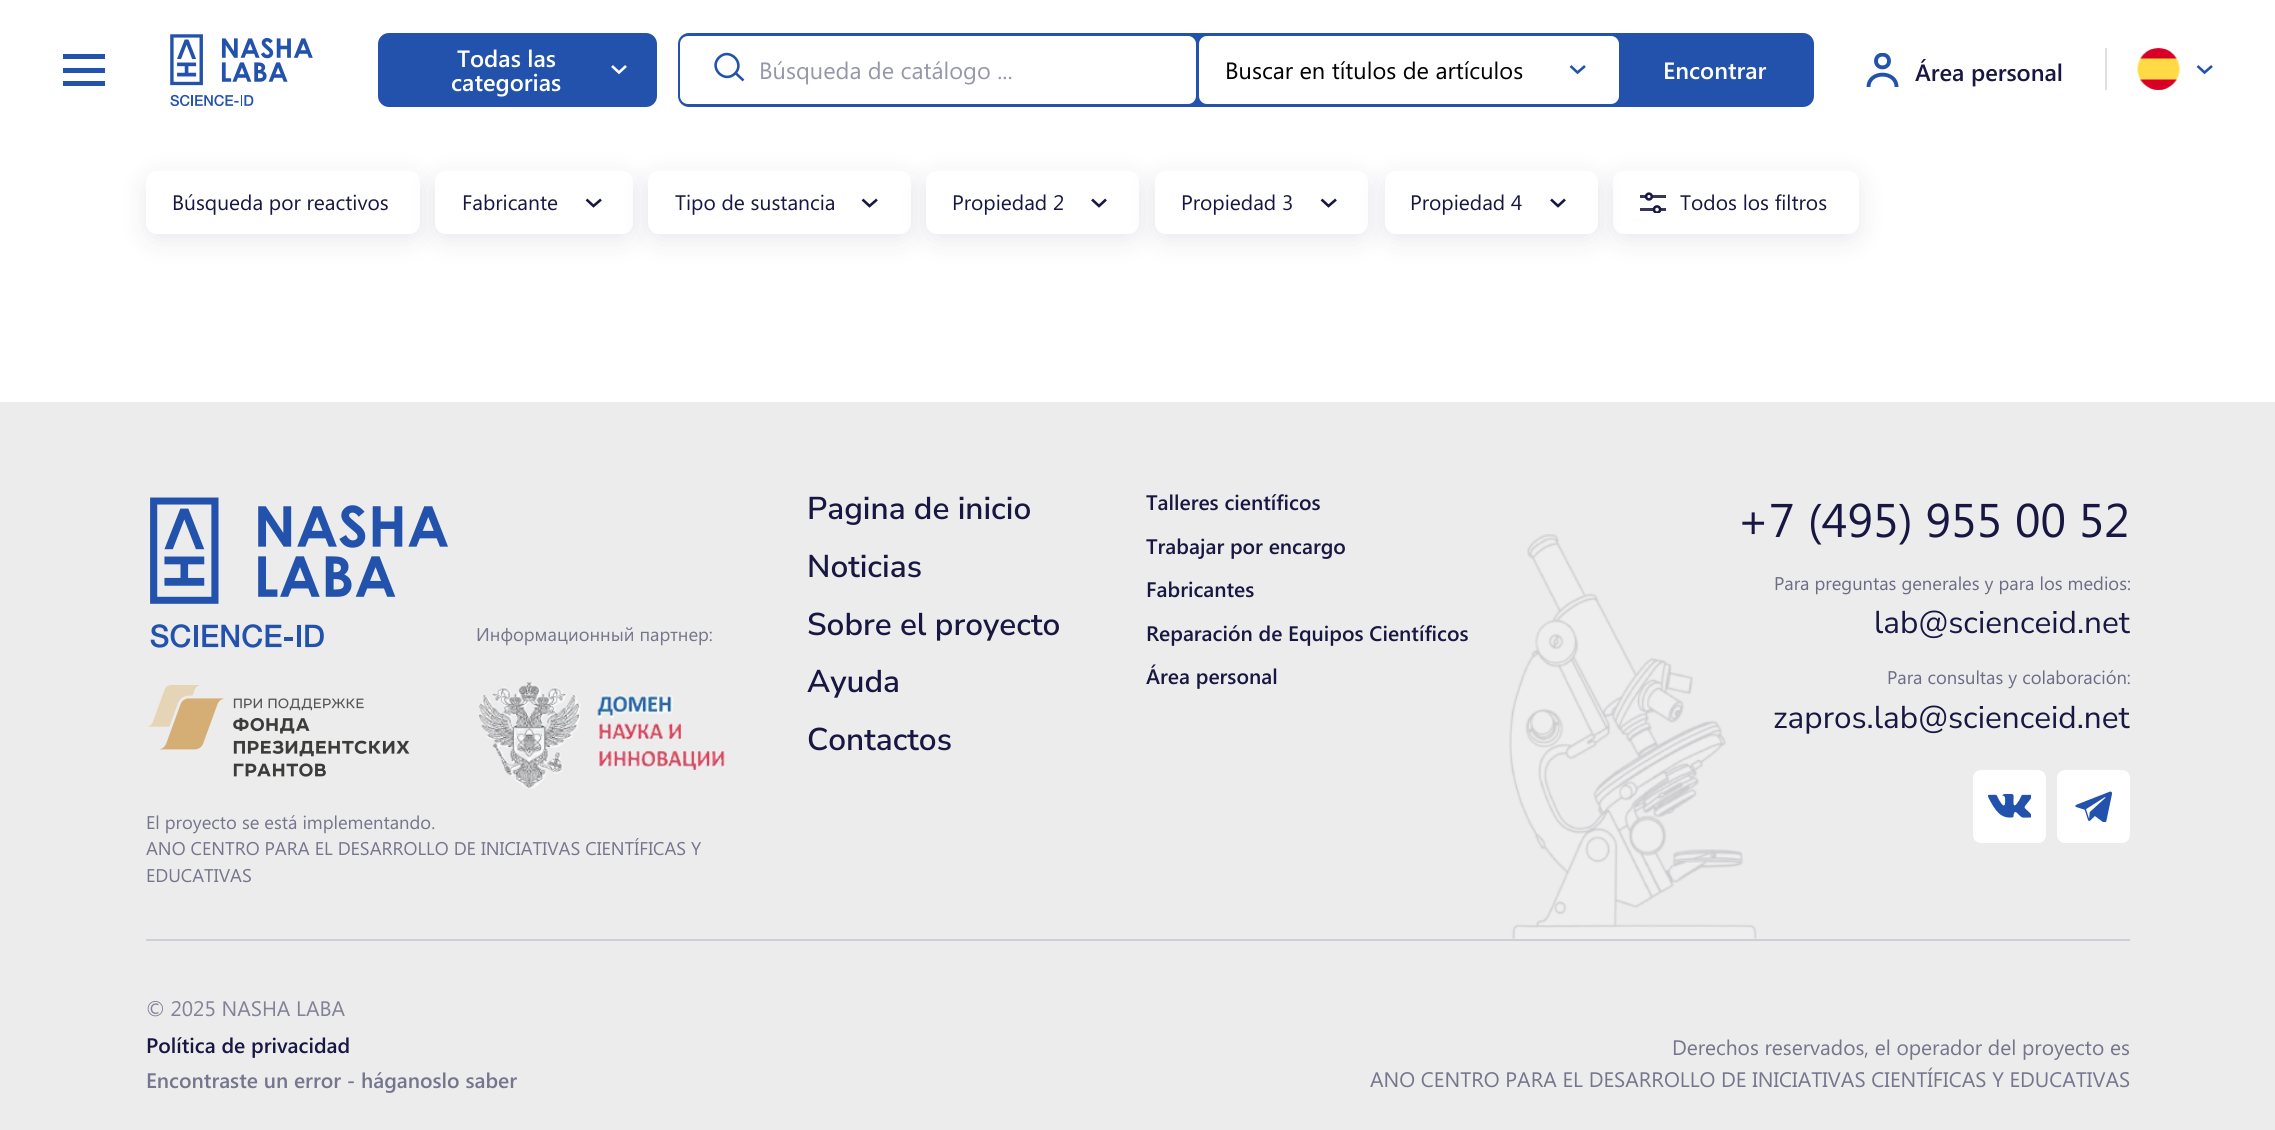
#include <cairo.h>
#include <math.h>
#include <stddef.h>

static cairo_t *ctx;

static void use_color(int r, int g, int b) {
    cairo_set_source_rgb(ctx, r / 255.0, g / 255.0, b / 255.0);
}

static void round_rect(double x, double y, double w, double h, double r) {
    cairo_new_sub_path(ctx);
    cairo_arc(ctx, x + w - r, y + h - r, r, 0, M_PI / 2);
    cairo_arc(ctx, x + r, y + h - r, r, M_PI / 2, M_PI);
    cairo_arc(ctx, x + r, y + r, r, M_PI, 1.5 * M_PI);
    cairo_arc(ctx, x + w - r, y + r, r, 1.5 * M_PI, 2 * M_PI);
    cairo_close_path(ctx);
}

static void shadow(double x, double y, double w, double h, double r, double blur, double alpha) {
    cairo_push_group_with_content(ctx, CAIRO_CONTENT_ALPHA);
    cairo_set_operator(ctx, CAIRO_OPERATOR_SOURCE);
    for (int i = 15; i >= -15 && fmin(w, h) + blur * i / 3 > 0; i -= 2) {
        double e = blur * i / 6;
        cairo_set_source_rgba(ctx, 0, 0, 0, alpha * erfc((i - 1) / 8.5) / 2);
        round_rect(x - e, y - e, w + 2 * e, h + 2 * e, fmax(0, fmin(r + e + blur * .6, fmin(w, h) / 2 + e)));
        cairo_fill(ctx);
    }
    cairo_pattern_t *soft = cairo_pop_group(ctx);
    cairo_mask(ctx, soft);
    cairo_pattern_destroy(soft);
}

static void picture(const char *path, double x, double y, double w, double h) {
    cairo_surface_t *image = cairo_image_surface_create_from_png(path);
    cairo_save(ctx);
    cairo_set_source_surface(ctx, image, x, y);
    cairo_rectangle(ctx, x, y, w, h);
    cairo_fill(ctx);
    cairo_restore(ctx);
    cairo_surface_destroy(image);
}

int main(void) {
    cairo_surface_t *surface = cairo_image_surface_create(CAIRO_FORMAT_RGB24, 2275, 1130);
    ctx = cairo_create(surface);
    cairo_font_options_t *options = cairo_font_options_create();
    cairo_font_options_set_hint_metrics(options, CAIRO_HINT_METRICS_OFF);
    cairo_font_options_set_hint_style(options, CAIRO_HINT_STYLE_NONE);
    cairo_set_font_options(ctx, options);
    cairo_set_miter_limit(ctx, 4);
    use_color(255, 255, 255);
    cairo_paint(ctx);
    use_color(34, 82, 172);
    cairo_rectangle(ctx, 63, 54, 42, 5);
    cairo_fill(ctx);
    cairo_rectangle(ctx, 63, 81, 42, 5);
    cairo_fill(ctx);
    cairo_rectangle(ctx, 63, 68, 42, 5);
    cairo_fill(ctx);
    picture("img1.png", 170, 34, 143, 73);
    round_rect(378, 33, 279, 74, 11);
    cairo_fill(ctx);
    cairo_select_font_face(ctx, "Segoe UI SemiBold", CAIRO_FONT_SLANT_NORMAL, CAIRO_FONT_WEIGHT_NORMAL);
    cairo_set_font_size(ctx, 23.6);
    use_color(255, 255, 255);
    cairo_move_to(ctx, 457, 67);
    cairo_show_text(ctx, "Todas las");
    cairo_move_to(ctx, 451, 91);
    cairo_show_text(ctx, "categorias");
    cairo_new_path(ctx);
    cairo_move_to(ctx, 612, 66);
    cairo_line_to(ctx, 619, 72.5);
    cairo_line_to(ctx, 626, 66);
    cairo_set_line_width(ctx, 2.6);
    cairo_stroke(ctx);
    use_color(34, 82, 172);
    round_rect(678, 33, 1136, 74, 11);
    cairo_fill(ctx);
    use_color(255, 255, 255);
    round_rect(680, 36, 516, 68, 8);
    cairo_fill(ctx);
    cairo_new_path(ctx);
    cairo_move_to(ctx, 719, 57.5);
    cairo_curve_to(ctx, 729.5, 47, 745.5, 63, 735, 73.5);
    cairo_curve_to(ctx, 724.5, 84, 708.5, 68, 719, 57.5);
    cairo_close_path(ctx);
    cairo_move_to(ctx, 735.5, 73);
    cairo_line_to(ctx, 743.5, 80.5);
    use_color(34, 82, 172);
    cairo_stroke(ctx);
    cairo_select_font_face(ctx, "Segoe UI", CAIRO_FONT_SLANT_NORMAL, CAIRO_FONT_WEIGHT_NORMAL);
    use_color(151, 151, 170);
    cairo_move_to(ctx, 759, 79);
    cairo_show_text(ctx, "Búsqueda de catálogo ...");
    use_color(255, 255, 255);
    round_rect(1199, 36, 420, 68, 8);
    cairo_fill(ctx);
    use_color(0, 0, 0);
    cairo_move_to(ctx, 1225, 79);
    cairo_show_text(ctx, "Buscar en títulos de artículos");
    cairo_new_path(ctx);
    cairo_move_to(ctx, 1570.5, 66);
    cairo_line_to(ctx, 1577.5, 72.5);
    cairo_line_to(ctx, 1585, 66);
    use_color(34, 82, 172);
    cairo_stroke(ctx);
    cairo_select_font_face(ctx, "Segoe UI SemiBold", CAIRO_FONT_SLANT_NORMAL, CAIRO_FONT_WEIGHT_NORMAL);
    use_color(255, 255, 255);
    cairo_move_to(ctx, 1663, 79);
    cairo_show_text(ctx, "Encontrar");
    cairo_save(ctx);
    cairo_rectangle(ctx, 1866, 53, 33, 36);
    cairo_clip(ctx);
    cairo_new_path(ctx);
    cairo_move_to(ctx, 1876, 61);
    cairo_curve_to(ctx, 1876, 52.5, 1889, 52.5, 1889, 61);
    cairo_curve_to(ctx, 1889, 69.5, 1876, 69.5, 1876, 61);
    cairo_close_path(ctx);
    use_color(34, 82, 172);
    cairo_set_line_width(ctx, 3.9);
    cairo_stroke(ctx);
    cairo_restore(ctx);
    cairo_new_path(ctx);
    cairo_move_to(ctx, 1868.5, 87);
    cairo_curve_to(ctx, 1868.5, 70.5, 1896.5, 70.5, 1896.5, 87);
    use_color(34, 82, 172);
    cairo_set_line_width(ctx, 3.9);
    cairo_stroke(ctx);
    use_color(23, 23, 66);
    cairo_move_to(ctx, 1915, 81);
    cairo_show_text(ctx, "Área personal");
    use_color(223, 223, 229);
    cairo_rectangle(ctx, 2105, 48, 2, 42);
    cairo_fill(ctx);
    picture("img2.png", 2137, 48, 43, 42);
    cairo_new_path(ctx);
    cairo_move_to(ctx, 2197.5, 66);
    cairo_line_to(ctx, 2204.5, 72.5);
    cairo_line_to(ctx, 2212, 66);
    use_color(34, 82, 172);
    cairo_set_line_width(ctx, 2.6);
    cairo_stroke(ctx);
    use_color(23, 23, 66);
    shadow(146, 177, 274, 63, 11, 13, 0.1);
    use_color(255, 255, 255);
    round_rect(146, 171, 274, 63, 11);
    cairo_fill(ctx);
    cairo_select_font_face(ctx, "Segoe UI", CAIRO_FONT_SLANT_NORMAL, CAIRO_FONT_WEIGHT_NORMAL);
    cairo_set_font_size(ctx, 21);
    use_color(23, 23, 66);
    cairo_move_to(ctx, 172, 210);
    cairo_show_text(ctx, "Búsqueda por reactivos");
    use_color(23, 23, 66);
    shadow(435, 177, 198, 63, 11, 13, 0.1);
    use_color(255, 255, 255);
    round_rect(435, 171, 198, 63, 11);
    cairo_fill(ctx);
    use_color(23, 23, 66);
    cairo_move_to(ctx, 462, 210);
    cairo_show_text(ctx, "Fabricante");
    cairo_new_path(ctx);
    cairo_move_to(ctx, 586.5, 199.5);
    cairo_line_to(ctx, 593.5, 206);
    cairo_line_to(ctx, 601, 199.5);
    cairo_stroke(ctx);
    use_color(23, 23, 66);
    shadow(648, 177, 263, 63, 11, 13, 0.1);
    use_color(255, 255, 255);
    round_rect(648, 171, 263, 63, 11);
    cairo_fill(ctx);
    use_color(23, 23, 66);
    cairo_move_to(ctx, 675, 210);
    cairo_show_text(ctx, "Tipo de sustancia");
    cairo_new_path(ctx);
    cairo_move_to(ctx, 862.5, 199.5);
    cairo_line_to(ctx, 869.5, 206);
    cairo_line_to(ctx, 877, 199.5);
    cairo_stroke(ctx);
    use_color(23, 23, 66);
    shadow(926, 177, 213, 63, 11, 13, 0.1);
    use_color(255, 255, 255);
    round_rect(926, 171, 213, 63, 11);
    cairo_fill(ctx);
    use_color(23, 23, 66);
    cairo_move_to(ctx, 952, 210);
    cairo_show_text(ctx, "Propiedad 2");
    cairo_new_path(ctx);
    cairo_move_to(ctx, 1092, 199.5);
    cairo_line_to(ctx, 1099, 206);
    cairo_line_to(ctx, 1106, 199.5);
    cairo_stroke(ctx);
    use_color(23, 23, 66);
    shadow(1155, 177, 213, 63, 11, 13, 0.1);
    use_color(255, 255, 255);
    round_rect(1155, 171, 213, 63, 11);
    cairo_fill(ctx);
    use_color(23, 23, 66);
    cairo_move_to(ctx, 1181, 210);
    cairo_show_text(ctx, "Propiedad 3");
    cairo_new_path(ctx);
    cairo_move_to(ctx, 1321.5, 199.5);
    cairo_line_to(ctx, 1328.5, 206);
    cairo_line_to(ctx, 1336, 199.5);
    cairo_stroke(ctx);
    use_color(23, 23, 66);
    shadow(1613, 177, 246, 63, 11, 13, 0.1);
    use_color(255, 255, 255);
    round_rect(1613, 171, 246, 63, 11);
    cairo_fill(ctx);
    use_color(23, 23, 66);
    shadow(1385, 177, 213, 63, 11, 13, 0.1);
    use_color(255, 255, 255);
    round_rect(1385, 171, 213, 63, 11);
    cairo_fill(ctx);
    use_color(23, 23, 66);
    cairo_move_to(ctx, 1410, 210);
    cairo_show_text(ctx, "Propiedad 4");
    cairo_new_path(ctx);
    cairo_move_to(ctx, 1551, 199.5);
    cairo_line_to(ctx, 1558, 206);
    cairo_line_to(ctx, 1565, 199.5);
    cairo_stroke(ctx);
    picture("img3.png", 1640, 192, 26, 21);
    cairo_move_to(ctx, 1680, 210);
    cairo_show_text(ctx, "Todos los filtros");
    use_color(236, 236, 236);
    cairo_rectangle(ctx, 0, 402, 2275, 728);
    cairo_fill(ctx);
    picture("img4.png", 150, 497, 298, 151);
    picture("img5.png", 147, 685, 263, 92);
    cairo_set_font_size(ctx, 18.4);
    use_color(117, 117, 141);
    cairo_move_to(ctx, 476, 641);
    cairo_show_text(ctx, "Информационный партнер:");
    picture("img6.png", 479, 682, 247, 107);
    cairo_move_to(ctx, 146, 829);
    cairo_show_text(ctx, "El proyecto se está implementando.");
    cairo_move_to(ctx, 146, 855);
    cairo_show_text(ctx, "ANO CENTRO PARA EL DESARROLLO DE INICIATIVAS CIENTÍFICAS Y");
    cairo_move_to(ctx, 146, 882);
    cairo_show_text(ctx, "EDUCATIVAS");
    cairo_select_font_face(ctx, "Nunito Sans SemiBold", CAIRO_FONT_SLANT_NORMAL, CAIRO_FONT_WEIGHT_NORMAL);
    cairo_set_font_size(ctx, 31.5);
    use_color(23, 23, 66);
    cairo_move_to(ctx, 807, 519);
    cairo_show_text(ctx, "Pagina de inicio");
    cairo_move_to(ctx, 807, 577);
    cairo_show_text(ctx, "Noticias");
    cairo_move_to(ctx, 807, 635);
    cairo_show_text(ctx, "Sobre el proyecto");
    cairo_move_to(ctx, 807, 692);
    cairo_show_text(ctx, "Ayuda");
    cairo_move_to(ctx, 807, 750);
    cairo_show_text(ctx, "Contactos");
    cairo_select_font_face(ctx, "Segoe UI SemiBold", CAIRO_FONT_SLANT_NORMAL, CAIRO_FONT_WEIGHT_NORMAL);
    cairo_set_font_size(ctx, 21);
    cairo_move_to(ctx, 1146, 510);
    cairo_show_text(ctx, "Talleres científicos");
    cairo_move_to(ctx, 1146, 554);
    cairo_show_text(ctx, "Trabajar por encargo");
    cairo_move_to(ctx, 1146, 597);
    cairo_show_text(ctx, "Fabricantes");
    cairo_move_to(ctx, 1146, 641);
    cairo_show_text(ctx, "Reparación de Equipos Científicos");
    cairo_move_to(ctx, 1146, 684);
    cairo_show_text(ctx, "Área personal");
    picture("img7.png", 1509, 534, 248, 405);
    cairo_select_font_face(ctx, "Segoe UI", CAIRO_FONT_SLANT_NORMAL, CAIRO_FONT_WEIGHT_NORMAL);
    cairo_set_font_size(ctx, 47.25);
    cairo_move_to(ctx, 1737, 537);
    cairo_show_text(ctx, "+7 (495) 955 00 52");
    cairo_set_font_size(ctx, 18.4);
    use_color(108, 108, 134);
    cairo_move_to(ctx, 1774, 590);
    cairo_show_text(ctx, "Para preguntas generales y para los medios:");
    cairo_select_font_face(ctx, "Nunito Sans", CAIRO_FONT_SLANT_NORMAL, CAIRO_FONT_WEIGHT_NORMAL);
    cairo_set_font_size(ctx, 31.5);
    use_color(23, 23, 66);
    cairo_move_to(ctx, 1874, 633);
    cairo_show_text(ctx, "lab@scienceid.net");
    cairo_select_font_face(ctx, "Segoe UI", CAIRO_FONT_SLANT_NORMAL, CAIRO_FONT_WEIGHT_NORMAL);
    cairo_set_font_size(ctx, 18.4);
    use_color(108, 108, 134);
    cairo_move_to(ctx, 1887, 684);
    cairo_show_text(ctx, "Para consultas y colaboración:");
    cairo_select_font_face(ctx, "Nunito Sans", CAIRO_FONT_SLANT_NORMAL, CAIRO_FONT_WEIGHT_NORMAL);
    cairo_set_font_size(ctx, 31.5);
    use_color(23, 23, 66);
    cairo_move_to(ctx, 1773, 728);
    cairo_show_text(ctx, "zapros.lab@scienceid.net");
    use_color(255, 255, 255);
    round_rect(1973, 770, 73, 73, 8);
    cairo_fill(ctx);
    picture("img8.png", 1988, 794, 43, 24);
    round_rect(2057, 770, 73, 73, 8);
    cairo_fill(ctx);
    picture("img9.png", 2075, 791, 37, 31);
    use_color(206, 206, 212);
    cairo_rectangle(ctx, 146, 939, 1984, 2);
    cairo_fill(ctx);
    cairo_select_font_face(ctx, "Segoe UI", CAIRO_FONT_SLANT_NORMAL, CAIRO_FONT_WEIGHT_NORMAL);
    cairo_set_font_size(ctx, 21);
    use_color(130, 130, 151);
    cairo_move_to(ctx, 146, 1016);
    cairo_show_text(ctx, "© 2025 NASHA LABA");
    cairo_select_font_face(ctx, "Segoe UI SemiBold", CAIRO_FONT_SLANT_NORMAL, CAIRO_FONT_WEIGHT_NORMAL);
    use_color(23, 23, 66);
    cairo_move_to(ctx, 146, 1053);
    cairo_show_text(ctx, "Política de privacidad");
    use_color(117, 117, 141);
    cairo_move_to(ctx, 146, 1088);
    cairo_show_text(ctx, "Encontraste un error - háganoslo saber");
    cairo_select_font_face(ctx, "Segoe UI", CAIRO_FONT_SLANT_NORMAL, CAIRO_FONT_WEIGHT_NORMAL);
    cairo_move_to(ctx, 1672, 1055);
    cairo_show_text(ctx, "Derechos reservados, el operador del proyecto es");
    cairo_move_to(ctx, 1370, 1087);
    cairo_show_text(ctx, "ANO CENTRO PARA EL DESARROLLO DE INICIATIVAS CIENTÍFICAS Y EDUCATIVAS");
    cairo_surface_write_to_png(surface, "result.png");
    cairo_font_options_destroy(options);
    cairo_destroy(ctx);
    cairo_surface_destroy(surface);
    return 0;
}
